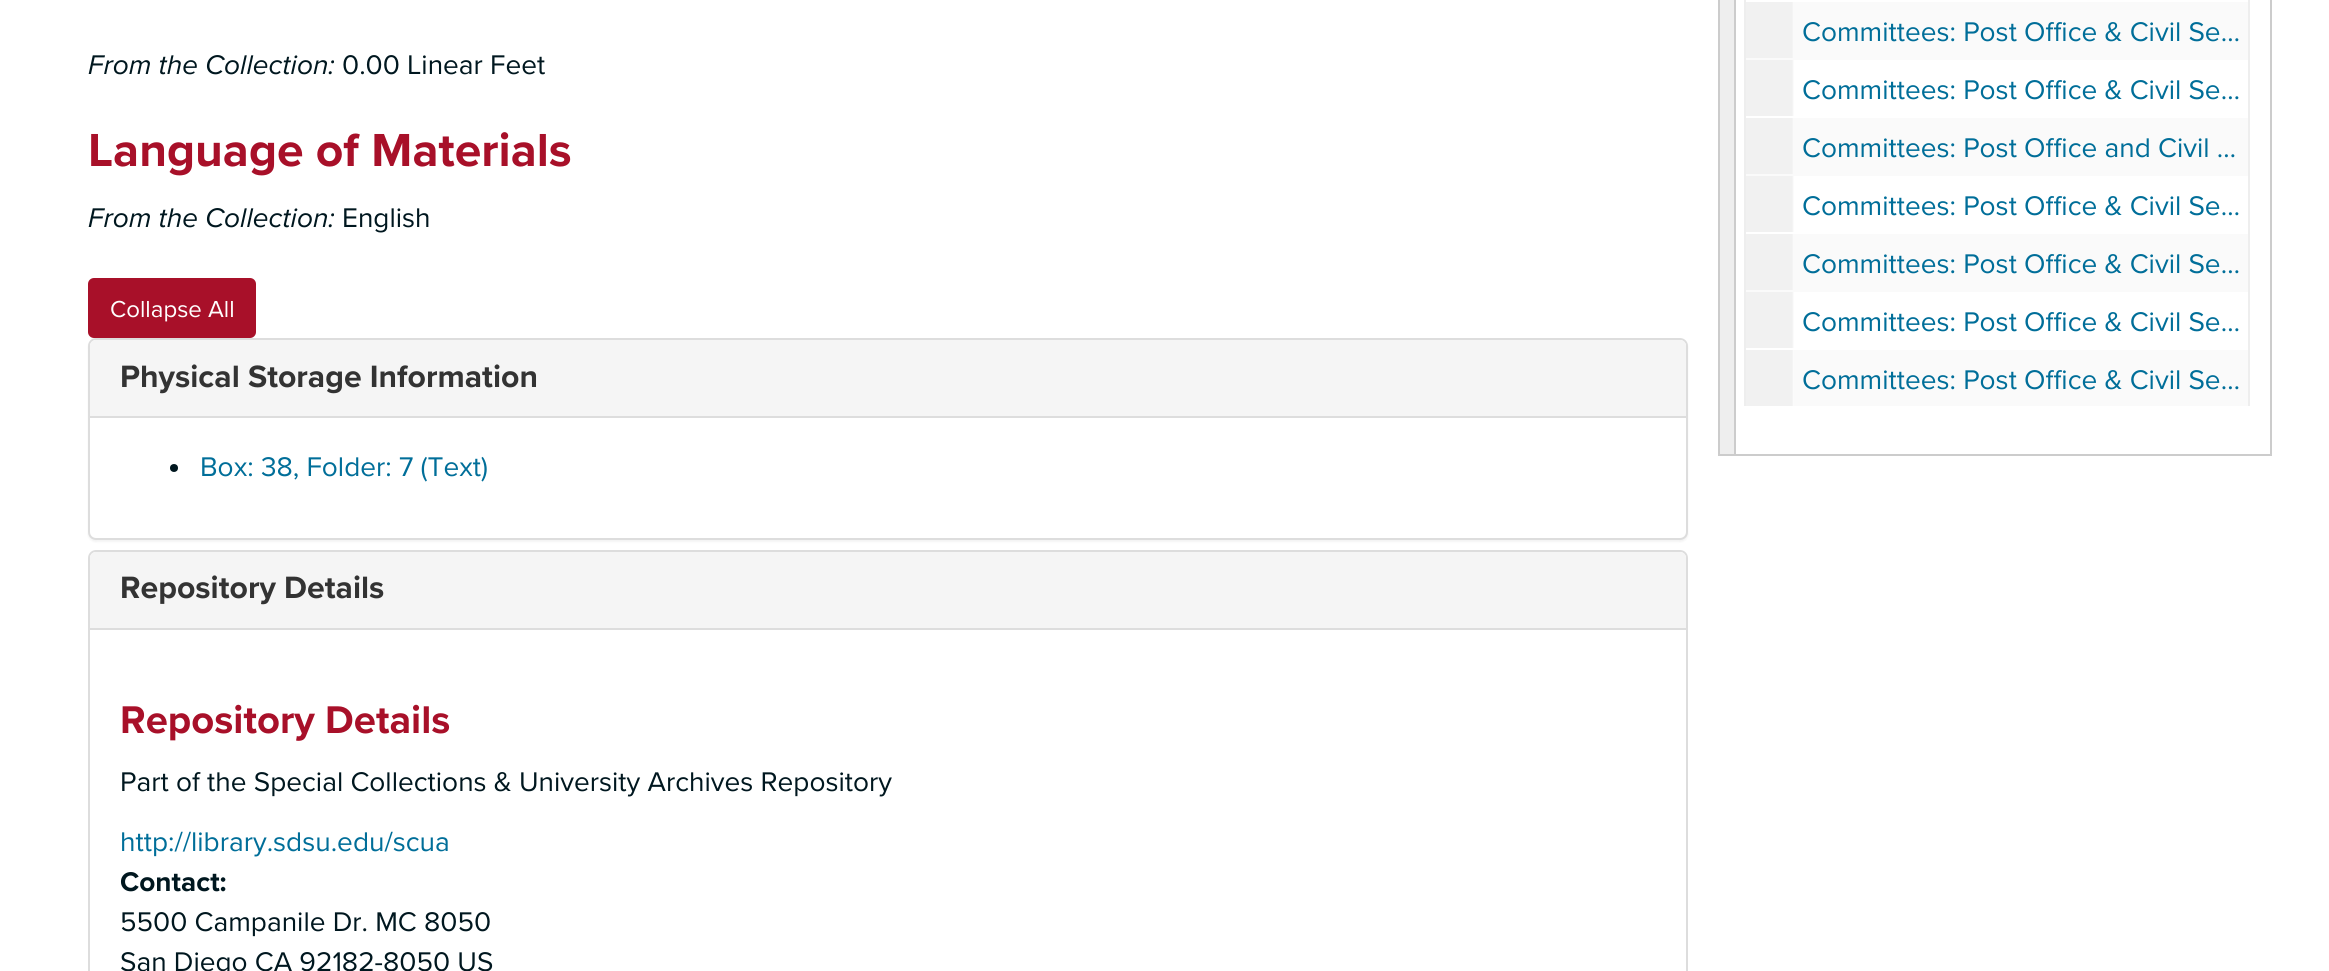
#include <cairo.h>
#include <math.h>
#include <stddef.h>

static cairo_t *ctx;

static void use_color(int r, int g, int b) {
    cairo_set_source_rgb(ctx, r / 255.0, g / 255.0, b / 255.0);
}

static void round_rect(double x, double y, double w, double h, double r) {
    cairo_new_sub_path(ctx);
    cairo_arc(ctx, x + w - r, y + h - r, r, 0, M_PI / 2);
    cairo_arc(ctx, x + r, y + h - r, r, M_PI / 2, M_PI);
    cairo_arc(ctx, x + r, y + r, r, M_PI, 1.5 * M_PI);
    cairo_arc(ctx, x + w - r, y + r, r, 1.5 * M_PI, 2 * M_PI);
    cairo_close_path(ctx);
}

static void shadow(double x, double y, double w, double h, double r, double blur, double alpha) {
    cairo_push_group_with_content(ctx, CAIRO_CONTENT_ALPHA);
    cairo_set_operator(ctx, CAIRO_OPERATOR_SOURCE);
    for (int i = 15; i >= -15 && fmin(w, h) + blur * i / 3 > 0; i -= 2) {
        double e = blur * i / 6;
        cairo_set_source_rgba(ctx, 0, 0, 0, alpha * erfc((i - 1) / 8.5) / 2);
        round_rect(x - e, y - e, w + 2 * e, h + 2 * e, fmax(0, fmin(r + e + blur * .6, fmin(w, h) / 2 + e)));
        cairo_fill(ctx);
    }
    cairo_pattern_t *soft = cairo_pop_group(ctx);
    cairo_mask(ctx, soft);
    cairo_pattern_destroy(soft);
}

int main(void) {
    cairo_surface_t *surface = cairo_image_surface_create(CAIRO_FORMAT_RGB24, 2329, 971);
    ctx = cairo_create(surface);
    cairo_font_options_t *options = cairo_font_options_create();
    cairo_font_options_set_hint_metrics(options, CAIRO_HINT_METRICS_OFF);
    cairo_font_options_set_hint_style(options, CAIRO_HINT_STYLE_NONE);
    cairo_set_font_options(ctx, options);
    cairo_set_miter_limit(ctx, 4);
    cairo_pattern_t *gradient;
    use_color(255, 255, 255);
    cairo_paint(ctx);
    cairo_select_font_face(ctx, "Proxima Nova", CAIRO_FONT_SLANT_ITALIC, CAIRO_FONT_WEIGHT_NORMAL);
    cairo_set_font_size(ctx, 28);
    use_color(0, 23, 31);
    cairo_move_to(ctx, 88, 74);
    cairo_show_text(ctx, "From the Collection:");
    cairo_select_font_face(ctx, "Proxima Nova", CAIRO_FONT_SLANT_NORMAL, CAIRO_FONT_WEIGHT_NORMAL);
    cairo_move_to(ctx, 342, 74);
    cairo_show_text(ctx, "0.00 Linear Feet");
    cairo_select_font_face(ctx, "Proxima Nova", CAIRO_FONT_SLANT_NORMAL, CAIRO_FONT_WEIGHT_BOLD);
    cairo_set_font_size(ctx, 48);
    use_color(168, 16, 41);
    cairo_move_to(ctx, 88, 166);
    cairo_show_text(ctx, "Language of Materials");
    cairo_select_font_face(ctx, "Proxima Nova", CAIRO_FONT_SLANT_ITALIC, CAIRO_FONT_WEIGHT_NORMAL);
    cairo_set_font_size(ctx, 28);
    use_color(0, 23, 31);
    cairo_move_to(ctx, 88, 227);
    cairo_show_text(ctx, "From the Collection:");
    cairo_select_font_face(ctx, "Proxima Nova", CAIRO_FONT_SLANT_NORMAL, CAIRO_FONT_WEIGHT_NORMAL);
    cairo_move_to(ctx, 342, 227);
    cairo_show_text(ctx, "English");
    use_color(0, 0, 0);
    shadow(88, 340, 1600, 202, 8, 1, 0.05);
    use_color(168, 16, 41);
    round_rect(89, 279, 166, 58, 5);
    cairo_fill_preserve(ctx);
    cairo_stroke(ctx);
    cairo_set_font_size(ctx, 24);
    use_color(255, 255, 255);
    cairo_move_to(ctx, 110, 317);
    cairo_show_text(ctx, "Collapse All");
    round_rect(89, 339, 1598, 200, 7);
    cairo_fill_preserve(ctx);
    use_color(221, 221, 221);
    cairo_stroke(ctx);
    use_color(245, 245, 245);
    cairo_new_path(ctx);
    cairo_move_to(ctx, 96, 340);
    cairo_line_to(ctx, 1680, 340);
    cairo_curve_to(ctx, 1683.5, 340, 1686, 342.5, 1686, 346);
    cairo_line_to(ctx, 1686, 416);
    cairo_line_to(ctx, 90, 416);
    cairo_line_to(ctx, 90, 346);
    cairo_curve_to(ctx, 90, 342.5, 92.5, 340, 96, 340);
    cairo_close_path(ctx);
    cairo_fill(ctx);
    cairo_select_font_face(ctx, "Proxima Nova", CAIRO_FONT_SLANT_NORMAL, CAIRO_FONT_WEIGHT_BOLD);
    cairo_set_font_size(ctx, 32);
    use_color(51, 51, 51);
    cairo_move_to(ctx, 120, 387);
    cairo_show_text(ctx, "Physical Storage Information");
    use_color(221, 221, 221);
    cairo_rectangle(ctx, 90, 416, 1596, 2);
    cairo_fill(ctx);
    use_color(0, 23, 31);
    cairo_arc(ctx, 174, 468, 4, 0, 2 * M_PI);
    cairo_fill(ctx);
    cairo_select_font_face(ctx, "Proxima Nova", CAIRO_FONT_SLANT_NORMAL, CAIRO_FONT_WEIGHT_NORMAL);
    cairo_set_font_size(ctx, 28);
    use_color(0, 110, 153);
    cairo_move_to(ctx, 200, 476);
    cairo_show_text(ctx, "Box: 38, Folder: 7 (Text)");
    round_rect(89, 551, 1598, 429, 7);
    use_color(221, 221, 221);
    cairo_stroke(ctx);
    use_color(245, 245, 245);
    cairo_new_path(ctx);
    cairo_move_to(ctx, 96, 552);
    cairo_line_to(ctx, 1680, 552);
    cairo_curve_to(ctx, 1683.5, 552, 1686, 554.5, 1686, 558);
    cairo_line_to(ctx, 1686, 628);
    cairo_line_to(ctx, 90, 628);
    cairo_line_to(ctx, 90, 558);
    cairo_curve_to(ctx, 90, 554.5, 92.5, 552, 96, 552);
    cairo_close_path(ctx);
    cairo_fill(ctx);
    cairo_select_font_face(ctx, "Proxima Nova", CAIRO_FONT_SLANT_NORMAL, CAIRO_FONT_WEIGHT_BOLD);
    cairo_set_font_size(ctx, 32);
    use_color(51, 51, 51);
    cairo_move_to(ctx, 120, 598);
    cairo_show_text(ctx, "Repository Details");
    use_color(221, 221, 221);
    cairo_rectangle(ctx, 90, 628, 1596, 2);
    cairo_fill(ctx);
    cairo_set_font_size(ctx, 40);
    use_color(168, 16, 41);
    cairo_move_to(ctx, 120, 733);
    cairo_show_text(ctx, "Repository Details");
    cairo_select_font_face(ctx, "Proxima Nova", CAIRO_FONT_SLANT_NORMAL, CAIRO_FONT_WEIGHT_NORMAL);
    cairo_set_font_size(ctx, 28);
    use_color(0, 23, 31);
    cairo_move_to(ctx, 120, 791);
    cairo_show_text(ctx, "Part of the Special Collections & University Archives Repository");
    use_color(0, 110, 153);
    cairo_move_to(ctx, 120, 851);
    cairo_show_text(ctx, "http://library.sdsu.edu/scua");
    cairo_select_font_face(ctx, "Proxima Nova", CAIRO_FONT_SLANT_NORMAL, CAIRO_FONT_WEIGHT_BOLD);
    use_color(0, 23, 31);
    cairo_move_to(ctx, 120, 891);
    cairo_show_text(ctx, "Contact:");
    cairo_select_font_face(ctx, "Proxima Nova", CAIRO_FONT_SLANT_NORMAL, CAIRO_FONT_WEIGHT_NORMAL);
    cairo_move_to(ctx, 120, 931);
    cairo_show_text(ctx, "5500 Campanile Dr. MC 8050");
    cairo_move_to(ctx, 120, 971);
    cairo_show_text(ctx, "San Diego CA 92182-8050 US");
    cairo_rectangle(ctx, 1719, -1, 552, 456);
    use_color(204, 204, 204);
    cairo_stroke(ctx);
    use_color(238, 238, 238);
    cairo_rectangle(ctx, 1720, 0, 14, 454);
    cairo_fill(ctx);
    use_color(204, 204, 204);
    cairo_rectangle(ctx, 1734, 0, 2, 454);
    cairo_fill(ctx);
    use_color(238, 238, 238);
    cairo_rectangle(ctx, 1744, 0, 506, 406);
    cairo_fill(ctx);
    use_color(255, 255, 255);
    cairo_rectangle(ctx, 1746, 0, 502, 2);
    cairo_fill(ctx);
    use_color(250, 250, 250);
    cairo_rectangle(ctx, 1746, 2, 502, 58);
    cairo_fill(ctx);
    gradient = cairo_pattern_create_linear(1746, 30, 1794, 30);
    cairo_pattern_add_color_stop_rgba(gradient, 0, 0.945, 0.945, 0.945, 1);
    cairo_pattern_add_color_stop_rgba(gradient, 0.96, 0.945, 0.945, 0.945, 1);
    cairo_pattern_add_color_stop_rgba(gradient, 1, 1, 1, 1, 1);
    cairo_set_source(ctx, gradient);
    cairo_pattern_destroy(gradient);
    cairo_rectangle(ctx, 1746, 2, 47, 56);
    cairo_fill(ctx);
    use_color(0, 110, 153);
    cairo_move_to(ctx, 1802, 41);
    cairo_show_text(ctx, "Committees: Post Office & Civil Se…");
    use_color(255, 255, 255);
    cairo_rectangle(ctx, 1746, 60, 502, 58);
    cairo_fill(ctx);
    gradient = cairo_pattern_create_linear(1746, 88, 1794, 88);
    cairo_pattern_add_color_stop_rgba(gradient, 0, 0.945, 0.945, 0.945, 1);
    cairo_pattern_add_color_stop_rgba(gradient, 0.96, 0.945, 0.945, 0.945, 1);
    cairo_pattern_add_color_stop_rgba(gradient, 1, 1, 1, 1, 1);
    cairo_set_source(ctx, gradient);
    cairo_pattern_destroy(gradient);
    cairo_rectangle(ctx, 1746, 60, 48, 56);
    cairo_fill(ctx);
    use_color(0, 110, 153);
    cairo_move_to(ctx, 1802, 99);
    cairo_show_text(ctx, "Committees: Post Office & Civil Se…");
    use_color(250, 250, 250);
    cairo_rectangle(ctx, 1746, 118, 502, 58);
    cairo_fill(ctx);
    gradient = cairo_pattern_create_linear(1746, 146, 1794, 146);
    cairo_pattern_add_color_stop_rgba(gradient, 0, 0.945, 0.945, 0.945, 1);
    cairo_pattern_add_color_stop_rgba(gradient, 0.96, 0.945, 0.945, 0.945, 1);
    cairo_pattern_add_color_stop_rgba(gradient, 1, 1, 1, 1, 1);
    cairo_set_source(ctx, gradient);
    cairo_pattern_destroy(gradient);
    cairo_rectangle(ctx, 1746, 118, 47, 56);
    cairo_fill(ctx);
    use_color(0, 110, 153);
    cairo_move_to(ctx, 1802, 157);
    cairo_show_text(ctx, "Committees: Post Office and Civil …");
    use_color(255, 255, 255);
    cairo_rectangle(ctx, 1746, 176, 502, 58);
    cairo_fill(ctx);
    gradient = cairo_pattern_create_linear(1746, 204, 1794, 204);
    cairo_pattern_add_color_stop_rgba(gradient, 0, 0.945, 0.945, 0.945, 1);
    cairo_pattern_add_color_stop_rgba(gradient, 0.96, 0.945, 0.945, 0.945, 1);
    cairo_pattern_add_color_stop_rgba(gradient, 1, 1, 1, 1, 1);
    cairo_set_source(ctx, gradient);
    cairo_pattern_destroy(gradient);
    cairo_rectangle(ctx, 1746, 176, 48, 56);
    cairo_fill(ctx);
    use_color(0, 110, 153);
    cairo_move_to(ctx, 1802, 215);
    cairo_show_text(ctx, "Committees: Post Office & Civil Se…");
    use_color(250, 250, 250);
    cairo_rectangle(ctx, 1746, 234, 502, 58);
    cairo_fill(ctx);
    gradient = cairo_pattern_create_linear(1746, 262, 1794, 262);
    cairo_pattern_add_color_stop_rgba(gradient, 0, 0.945, 0.945, 0.945, 1);
    cairo_pattern_add_color_stop_rgba(gradient, 0.96, 0.945, 0.945, 0.945, 1);
    cairo_pattern_add_color_stop_rgba(gradient, 1, 1, 1, 1, 1);
    cairo_set_source(ctx, gradient);
    cairo_pattern_destroy(gradient);
    cairo_rectangle(ctx, 1746, 234, 47, 56);
    cairo_fill(ctx);
    use_color(0, 110, 153);
    cairo_move_to(ctx, 1802, 273);
    cairo_show_text(ctx, "Committees: Post Office & Civil Se…");
    use_color(255, 255, 255);
    cairo_rectangle(ctx, 1746, 292, 502, 58);
    cairo_fill(ctx);
    gradient = cairo_pattern_create_linear(1746, 320, 1794, 320);
    cairo_pattern_add_color_stop_rgba(gradient, 0, 0.945, 0.945, 0.945, 1);
    cairo_pattern_add_color_stop_rgba(gradient, 0.96, 0.945, 0.945, 0.945, 1);
    cairo_pattern_add_color_stop_rgba(gradient, 1, 1, 1, 1, 1);
    cairo_set_source(ctx, gradient);
    cairo_pattern_destroy(gradient);
    cairo_rectangle(ctx, 1746, 292, 48, 56);
    cairo_fill(ctx);
    use_color(0, 110, 153);
    cairo_move_to(ctx, 1802, 331);
    cairo_show_text(ctx, "Committees: Post Office & Civil Se…");
    use_color(250, 250, 250);
    cairo_rectangle(ctx, 1794, 350, 454, 56);
    cairo_fill(ctx);
    gradient = cairo_pattern_create_linear(1746, 378, 1794, 378);
    cairo_pattern_add_color_stop_rgba(gradient, 0, 0.945, 0.945, 0.945, 1);
    cairo_pattern_add_color_stop_rgba(gradient, 0.96, 0.945, 0.945, 0.945, 1);
    cairo_pattern_add_color_stop_rgba(gradient, 1, 1, 1, 1, 1);
    cairo_set_source(ctx, gradient);
    cairo_pattern_destroy(gradient);
    cairo_rectangle(ctx, 1746, 350, 48, 56);
    cairo_fill(ctx);
    use_color(0, 110, 153);
    cairo_move_to(ctx, 1802, 389);
    cairo_show_text(ctx, "Committees: Post Office & Civil Se…");
    cairo_surface_write_to_png(surface, "result.png");
    cairo_font_options_destroy(options);
    cairo_destroy(ctx);
    cairo_surface_destroy(surface);
    return 0;
}
